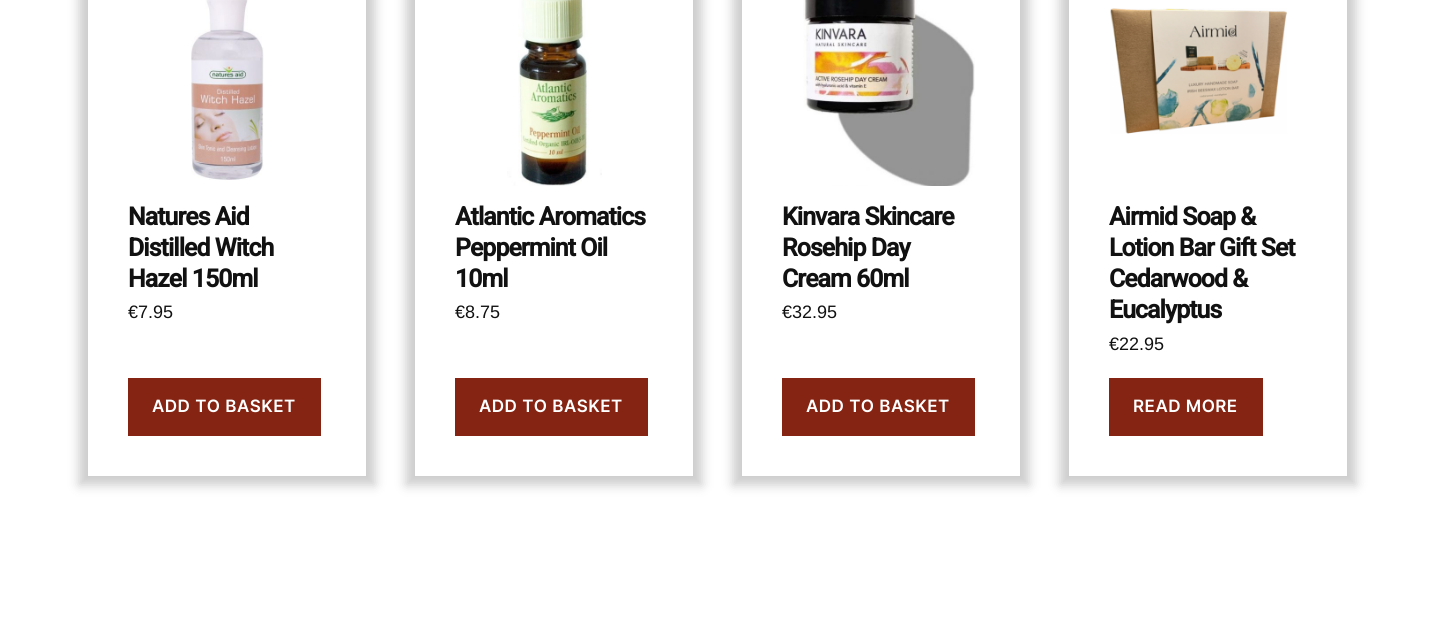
#include <cairo.h>
#include <math.h>
#include <stddef.h>

static cairo_t *ctx;

static void use_color(int r, int g, int b) {
    cairo_set_source_rgb(ctx, r / 255.0, g / 255.0, b / 255.0);
}

static void spaced_text(double x, double y, const char *s, double letter, double word) {
    cairo_move_to(ctx, x, y);
    while (*s) {
        char ch[5] = {0};
        int n = 0;
        do ch[n++] = *s++; while ((*s & 0xC0) == 0x80);
        cairo_show_text(ctx, ch);
        cairo_rel_move_to(ctx, letter + word * (*ch == ' '), 0);
    }
}

static void round_rect(double x, double y, double w, double h, double r) {
    cairo_new_sub_path(ctx);
    cairo_arc(ctx, x + w - r, y + h - r, r, 0, M_PI / 2);
    cairo_arc(ctx, x + r, y + h - r, r, M_PI / 2, M_PI);
    cairo_arc(ctx, x + r, y + r, r, M_PI, 1.5 * M_PI);
    cairo_arc(ctx, x + w - r, y + r, r, 1.5 * M_PI, 2 * M_PI);
    cairo_close_path(ctx);
}

static void shadow(double x, double y, double w, double h, double r, double blur, double alpha) {
    cairo_push_group_with_content(ctx, CAIRO_CONTENT_ALPHA);
    cairo_set_operator(ctx, CAIRO_OPERATOR_SOURCE);
    for (int i = 15; i >= -15 && fmin(w, h) + blur * i / 3 > 0; i -= 2) {
        double e = blur * i / 6;
        cairo_set_source_rgba(ctx, 0, 0, 0, alpha * erfc((i - 1) / 8.5) / 2);
        round_rect(x - e, y - e, w + 2 * e, h + 2 * e, fmax(0, fmin(r + e + blur * .6, fmin(w, h) / 2 + e)));
        cairo_fill(ctx);
    }
    cairo_pattern_t *soft = cairo_pop_group(ctx);
    cairo_mask(ctx, soft);
    cairo_pattern_destroy(soft);
}

static void picture(const char *path, double x, double y, double w, double h) {
    cairo_surface_t *image = cairo_image_surface_create_from_png(path);
    cairo_save(ctx);
    cairo_set_source_surface(ctx, image, x, y);
    cairo_rectangle(ctx, x, y, w, h);
    cairo_fill(ctx);
    cairo_restore(ctx);
    cairo_surface_destroy(image);
}

int main(void) {
    cairo_surface_t *surface = cairo_image_surface_create(CAIRO_FORMAT_RGB24, 1435, 624);
    ctx = cairo_create(surface);
    cairo_font_options_t *options = cairo_font_options_create();
    cairo_font_options_set_hint_metrics(options, CAIRO_HINT_METRICS_OFF);
    cairo_font_options_set_hint_style(options, CAIRO_HINT_STYLE_NONE);
    cairo_set_font_options(ctx, options);
    cairo_set_miter_limit(ctx, 4);
    use_color(255, 255, 255);
    cairo_paint(ctx);
    cairo_save(ctx);
    cairo_set_fill_rule(ctx, CAIRO_FILL_RULE_EVEN_ODD);
    cairo_new_path(ctx);
    cairo_move_to(ctx, 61, 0);
    cairo_line_to(ctx, 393, 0);
    cairo_line_to(ctx, 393, 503);
    cairo_line_to(ctx, 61, 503);
    cairo_close_path(ctx);
    cairo_move_to(ctx, 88, -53);
    cairo_line_to(ctx, 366, -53);
    cairo_line_to(ctx, 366, 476);
    cairo_line_to(ctx, 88, 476);
    cairo_close_path(ctx);
    cairo_clip(ctx);
    use_color(204, 204, 204);
    shadow(79, -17, 296, 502, 0, 5.5, 1);
    cairo_restore(ctx);
    picture("img1.png", 191, 0, 73, 180);
    cairo_select_font_face(ctx, "Roboto", CAIRO_FONT_SLANT_NORMAL, CAIRO_FONT_WEIGHT_BOLD);
    cairo_set_font_size(ctx, 25);
    use_color(17, 17, 17);
    spaced_text(128, 225, "Natures Aid", -1, 0);
    spaced_text(128, 256, "Distilled Witch", -1, 0);
    spaced_text(128, 287, "Hazel 150ml", -1, 0);
    cairo_select_font_face(ctx, "Liberation Sans", CAIRO_FONT_SLANT_NORMAL, CAIRO_FONT_WEIGHT_NORMAL);
    cairo_set_font_size(ctx, 18);
    cairo_move_to(ctx, 128, 318);
    cairo_show_text(ctx, "€7.95");
    use_color(133, 36, 19);
    cairo_rectangle(ctx, 128, 378, 193, 58);
    cairo_fill(ctx);
    cairo_select_font_face(ctx, "Inter SemiBold", CAIRO_FONT_SLANT_NORMAL, CAIRO_FONT_WEIGHT_NORMAL);
    cairo_set_font_size(ctx, 17);
    use_color(255, 255, 255);
    spaced_text(152, 412, "ADD TO BASKET", 0.5, 0);
    cairo_save(ctx);
    cairo_set_fill_rule(ctx, CAIRO_FILL_RULE_EVEN_ODD);
    cairo_new_path(ctx);
    cairo_move_to(ctx, 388, 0);
    cairo_line_to(ctx, 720, 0);
    cairo_line_to(ctx, 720, 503);
    cairo_line_to(ctx, 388, 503);
    cairo_close_path(ctx);
    cairo_move_to(ctx, 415, -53);
    cairo_line_to(ctx, 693, -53);
    cairo_line_to(ctx, 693, 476);
    cairo_line_to(ctx, 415, 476);
    cairo_close_path(ctx);
    cairo_clip(ctx);
    use_color(204, 204, 204);
    shadow(406, -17, 296, 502, 0, 5.5, 1);
    cairo_restore(ctx);
    picture("img2.png", 507, 0, 95, 186);
    cairo_select_font_face(ctx, "Roboto", CAIRO_FONT_SLANT_NORMAL, CAIRO_FONT_WEIGHT_BOLD);
    cairo_set_font_size(ctx, 25);
    use_color(17, 17, 17);
    spaced_text(455, 225, "Atlantic Aromatics", -1, 0);
    spaced_text(455, 256, "Peppermint Oil", -1, 0);
    spaced_text(455, 287, "10ml", -1, 0);
    cairo_select_font_face(ctx, "Liberation Sans", CAIRO_FONT_SLANT_NORMAL, CAIRO_FONT_WEIGHT_NORMAL);
    cairo_set_font_size(ctx, 18);
    cairo_move_to(ctx, 455, 318);
    cairo_show_text(ctx, "€8.75");
    use_color(133, 36, 19);
    cairo_rectangle(ctx, 455, 378, 193, 58);
    cairo_fill(ctx);
    cairo_select_font_face(ctx, "Inter SemiBold", CAIRO_FONT_SLANT_NORMAL, CAIRO_FONT_WEIGHT_NORMAL);
    cairo_set_font_size(ctx, 17);
    use_color(255, 255, 255);
    spaced_text(479, 412, "ADD TO BASKET", 0.5, 0);
    cairo_save(ctx);
    cairo_set_fill_rule(ctx, CAIRO_FILL_RULE_EVEN_ODD);
    cairo_new_path(ctx);
    cairo_move_to(ctx, 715, 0);
    cairo_line_to(ctx, 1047, 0);
    cairo_line_to(ctx, 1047, 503);
    cairo_line_to(ctx, 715, 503);
    cairo_close_path(ctx);
    cairo_move_to(ctx, 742, -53);
    cairo_line_to(ctx, 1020, -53);
    cairo_line_to(ctx, 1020, 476);
    cairo_line_to(ctx, 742, 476);
    cairo_close_path(ctx);
    cairo_clip(ctx);
    use_color(204, 204, 204);
    shadow(733, -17, 296, 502, 0, 5.5, 1);
    cairo_restore(ctx);
    picture("img3.png", 803, 0, 172, 186);
    cairo_select_font_face(ctx, "Roboto", CAIRO_FONT_SLANT_NORMAL, CAIRO_FONT_WEIGHT_BOLD);
    cairo_set_font_size(ctx, 25);
    use_color(17, 17, 17);
    spaced_text(782, 225, "Kinvara Skincare", -1, 0);
    spaced_text(782, 256, "Rosehip Day", -1, 0);
    spaced_text(782, 287, "Cream 60ml", -1, 0);
    cairo_select_font_face(ctx, "Liberation Sans", CAIRO_FONT_SLANT_NORMAL, CAIRO_FONT_WEIGHT_NORMAL);
    cairo_set_font_size(ctx, 18);
    cairo_move_to(ctx, 782, 318);
    cairo_show_text(ctx, "€32.95");
    use_color(133, 36, 19);
    cairo_rectangle(ctx, 782, 378, 193, 58);
    cairo_fill(ctx);
    cairo_select_font_face(ctx, "Inter SemiBold", CAIRO_FONT_SLANT_NORMAL, CAIRO_FONT_WEIGHT_NORMAL);
    cairo_set_font_size(ctx, 17);
    use_color(255, 255, 255);
    spaced_text(806, 412, "ADD TO BASKET", 0.5, 0);
    cairo_save(ctx);
    cairo_set_fill_rule(ctx, CAIRO_FILL_RULE_EVEN_ODD);
    cairo_new_path(ctx);
    cairo_move_to(ctx, 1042, 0);
    cairo_line_to(ctx, 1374, 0);
    cairo_line_to(ctx, 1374, 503);
    cairo_line_to(ctx, 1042, 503);
    cairo_close_path(ctx);
    cairo_move_to(ctx, 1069, -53);
    cairo_line_to(ctx, 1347, -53);
    cairo_line_to(ctx, 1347, 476);
    cairo_line_to(ctx, 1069, 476);
    cairo_close_path(ctx);
    cairo_clip(ctx);
    use_color(204, 204, 204);
    shadow(1060, -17, 296, 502, 0, 5.5, 1);
    cairo_restore(ctx);
    picture("img4.png", 1110, 8, 177, 126);
    cairo_select_font_face(ctx, "Roboto", CAIRO_FONT_SLANT_NORMAL, CAIRO_FONT_WEIGHT_BOLD);
    cairo_set_font_size(ctx, 25);
    use_color(17, 17, 17);
    spaced_text(1109, 225, "Airmid Soap &", -1, 0);
    spaced_text(1109, 256, "Lotion Bar Gift Set", -1, 0);
    spaced_text(1109, 287, "Cedarwood &", -1, 0);
    spaced_text(1109, 318, "Eucalyptus", -1, 0);
    cairo_select_font_face(ctx, "Liberation Sans", CAIRO_FONT_SLANT_NORMAL, CAIRO_FONT_WEIGHT_NORMAL);
    cairo_set_font_size(ctx, 18);
    cairo_move_to(ctx, 1109, 350);
    cairo_show_text(ctx, "€22.95");
    use_color(133, 36, 19);
    cairo_rectangle(ctx, 1109, 378, 154, 58);
    cairo_fill(ctx);
    cairo_select_font_face(ctx, "Inter SemiBold", CAIRO_FONT_SLANT_NORMAL, CAIRO_FONT_WEIGHT_NORMAL);
    cairo_set_font_size(ctx, 17);
    use_color(255, 255, 255);
    spaced_text(1133, 412, "READ MORE", 0.5, 0);
    cairo_surface_write_to_png(surface, "result.png");
    cairo_font_options_destroy(options);
    cairo_destroy(ctx);
    cairo_surface_destroy(surface);
    return 0;
}
